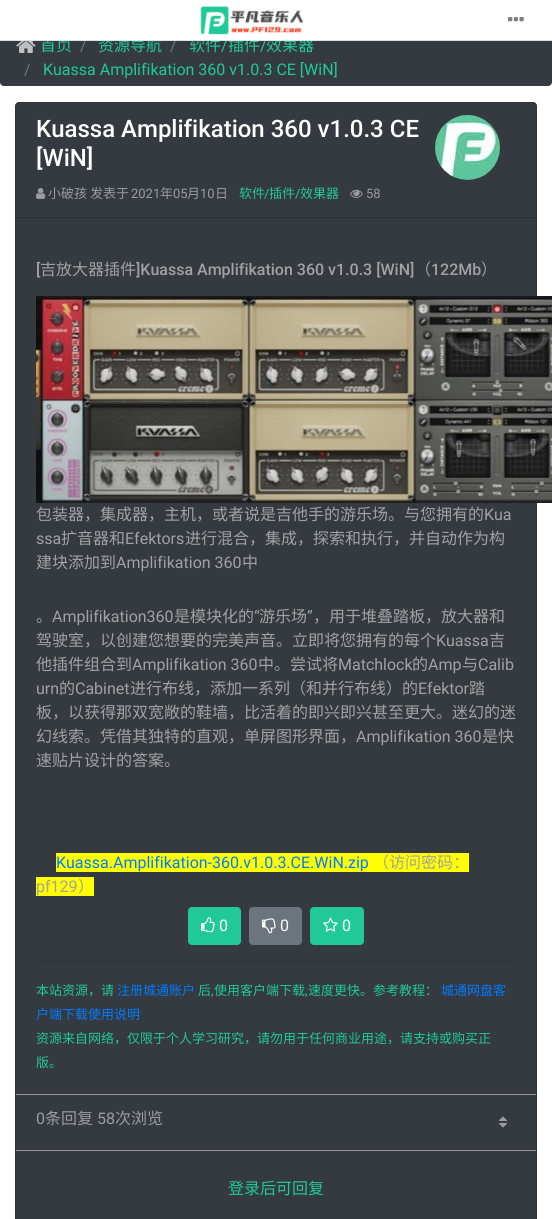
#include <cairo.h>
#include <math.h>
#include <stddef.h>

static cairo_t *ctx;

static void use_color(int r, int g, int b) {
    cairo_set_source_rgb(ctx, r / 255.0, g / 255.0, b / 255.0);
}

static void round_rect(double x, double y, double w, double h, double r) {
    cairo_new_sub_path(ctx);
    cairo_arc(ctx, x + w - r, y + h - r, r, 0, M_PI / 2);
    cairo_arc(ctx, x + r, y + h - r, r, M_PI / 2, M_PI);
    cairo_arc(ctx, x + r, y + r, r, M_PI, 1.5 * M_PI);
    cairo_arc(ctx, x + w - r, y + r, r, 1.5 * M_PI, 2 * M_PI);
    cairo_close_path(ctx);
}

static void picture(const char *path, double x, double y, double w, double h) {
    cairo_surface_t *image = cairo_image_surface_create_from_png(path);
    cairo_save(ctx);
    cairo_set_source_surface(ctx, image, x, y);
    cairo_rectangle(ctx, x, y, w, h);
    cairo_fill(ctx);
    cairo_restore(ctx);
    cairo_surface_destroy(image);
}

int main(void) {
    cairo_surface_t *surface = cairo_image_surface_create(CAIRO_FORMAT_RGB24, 552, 1219);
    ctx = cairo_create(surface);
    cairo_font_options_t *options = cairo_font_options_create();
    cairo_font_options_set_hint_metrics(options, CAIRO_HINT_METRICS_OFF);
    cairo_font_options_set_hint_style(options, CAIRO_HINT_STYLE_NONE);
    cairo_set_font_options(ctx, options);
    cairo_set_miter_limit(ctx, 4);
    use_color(255, 255, 255);
    cairo_paint(ctx);
    use_color(52, 58, 64);
    round_rect(0, 30, 552, 56, 4);
    cairo_fill(ctx);
    cairo_select_font_face(ctx, "Noto Sans CJK SC", CAIRO_FONT_SLANT_NORMAL, CAIRO_FONT_WEIGHT_NORMAL);
    cairo_set_font_size(ctx, 16);
    use_color(32, 201, 151);
    cairo_move_to(ctx, 40, 51);
    cairo_show_text(ctx, "首页");
    cairo_select_font_face(ctx, "Roboto", CAIRO_FONT_SLANT_NORMAL, CAIRO_FONT_WEIGHT_NORMAL);
    use_color(108, 117, 125);
    cairo_move_to(ctx, 80, 51);
    cairo_show_text(ctx, "/");
    cairo_select_font_face(ctx, "Noto Sans CJK SC", CAIRO_FONT_SLANT_NORMAL, CAIRO_FONT_WEIGHT_NORMAL);
    use_color(32, 201, 151);
    cairo_move_to(ctx, 98, 51);
    cairo_show_text(ctx, "资源导航");
    cairo_select_font_face(ctx, "Roboto", CAIRO_FONT_SLANT_NORMAL, CAIRO_FONT_WEIGHT_NORMAL);
    use_color(108, 117, 125);
    cairo_move_to(ctx, 170, 51);
    cairo_show_text(ctx, "/");
    cairo_select_font_face(ctx, "Noto Sans CJK SC", CAIRO_FONT_SLANT_NORMAL, CAIRO_FONT_WEIGHT_NORMAL);
    use_color(32, 201, 151);
    cairo_move_to(ctx, 189, 51);
    cairo_show_text(ctx, "软件");
    cairo_select_font_face(ctx, "Roboto", CAIRO_FONT_SLANT_NORMAL, CAIRO_FONT_WEIGHT_NORMAL);
    cairo_move_to(ctx, 221, 51);
    cairo_show_text(ctx, "/");
    cairo_select_font_face(ctx, "Noto Sans CJK SC", CAIRO_FONT_SLANT_NORMAL, CAIRO_FONT_WEIGHT_NORMAL);
    cairo_move_to(ctx, 228, 51);
    cairo_show_text(ctx, "插件");
    cairo_select_font_face(ctx, "Roboto", CAIRO_FONT_SLANT_NORMAL, CAIRO_FONT_WEIGHT_NORMAL);
    cairo_move_to(ctx, 260, 51);
    cairo_show_text(ctx, "/");
    cairo_select_font_face(ctx, "Noto Sans CJK SC", CAIRO_FONT_SLANT_NORMAL, CAIRO_FONT_WEIGHT_NORMAL);
    cairo_move_to(ctx, 266, 51);
    cairo_show_text(ctx, "效果器");
    use_color(255, 255, 255);
    cairo_rectangle(ctx, 0, 30, 552, 10);
    cairo_fill(ctx);
    use_color(222, 226, 230);
    cairo_rectangle(ctx, 0, 40, 552, 1);
    cairo_fill(ctx);
    picture("img1.png", 200, 6, 104, 29);
    picture("img2.png", 508, 17, 16, 5);
    picture("img3.png", 16, 41, 20, 12);
    cairo_select_font_face(ctx, "Roboto", CAIRO_FONT_SLANT_NORMAL, CAIRO_FONT_WEIGHT_NORMAL);
    use_color(108, 117, 125);
    cairo_move_to(ctx, 24, 75);
    cairo_show_text(ctx, "/");
    use_color(32, 201, 151);
    cairo_move_to(ctx, 43, 75);
    cairo_show_text(ctx, "Kuassa Amplifikation 360 v1.0.3 CE [WiN]");
    use_color(52, 58, 64);
    round_rect(15, 102, 522, 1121, 4);
    cairo_fill(ctx);
    round_rect(15.5, 102.5, 521, 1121, 3.5);
    cairo_set_source_rgba(ctx, 0, 0, 0, 0.12);
    cairo_set_line_width(ctx, 1);
    cairo_stroke(ctx);
    use_color(44, 49, 54);
    cairo_rectangle(ctx, 16, 217, 520, 1);
    cairo_fill(ctx);
    cairo_select_font_face(ctx, "Roboto Medium", CAIRO_FONT_SLANT_NORMAL, CAIRO_FONT_WEIGHT_NORMAL);
    cairo_set_font_size(ctx, 24);
    use_color(255, 255, 255);
    cairo_move_to(ctx, 36, 137);
    cairo_show_text(ctx, "Kuassa Amplifikation 360 v1.0.3 CE");
    cairo_move_to(ctx, 36, 166);
    cairo_show_text(ctx, "[WiN]");
    picture("img4.png", 435, 115, 65, 65);
    picture("img5.png", 36, 188, 10, 11);
    cairo_select_font_face(ctx, "Noto Sans CJK SC", CAIRO_FONT_SLANT_NORMAL, CAIRO_FONT_WEIGHT_NORMAL);
    cairo_set_font_size(ctx, 13);
    use_color(153, 156, 159);
    cairo_move_to(ctx, 48, 198);
    cairo_show_text(ctx, "小破孩");
    cairo_move_to(ctx, 90, 198);
    cairo_show_text(ctx, "发表于");
    cairo_select_font_face(ctx, "Roboto", CAIRO_FONT_SLANT_NORMAL, CAIRO_FONT_WEIGHT_NORMAL);
    cairo_move_to(ctx, 131, 198);
    cairo_show_text(ctx, "2021");
    cairo_select_font_face(ctx, "Noto Sans CJK SC", CAIRO_FONT_SLANT_NORMAL, CAIRO_FONT_WEIGHT_NORMAL);
    cairo_move_to(ctx, 160, 198);
    cairo_show_text(ctx, "年");
    cairo_select_font_face(ctx, "Roboto", CAIRO_FONT_SLANT_NORMAL, CAIRO_FONT_WEIGHT_NORMAL);
    cairo_move_to(ctx, 173, 198);
    cairo_show_text(ctx, "05");
    cairo_select_font_face(ctx, "Noto Sans CJK SC", CAIRO_FONT_SLANT_NORMAL, CAIRO_FONT_WEIGHT_NORMAL);
    cairo_move_to(ctx, 187, 198);
    cairo_show_text(ctx, "月");
    cairo_select_font_face(ctx, "Roboto", CAIRO_FONT_SLANT_NORMAL, CAIRO_FONT_WEIGHT_NORMAL);
    cairo_move_to(ctx, 200, 198);
    cairo_show_text(ctx, "10");
    cairo_select_font_face(ctx, "Noto Sans CJK SC", CAIRO_FONT_SLANT_NORMAL, CAIRO_FONT_WEIGHT_NORMAL);
    cairo_move_to(ctx, 215, 198);
    cairo_show_text(ctx, "日");
    use_color(32, 201, 151);
    cairo_move_to(ctx, 239, 198);
    cairo_show_text(ctx, "软件");
    cairo_select_font_face(ctx, "Roboto", CAIRO_FONT_SLANT_NORMAL, CAIRO_FONT_WEIGHT_NORMAL);
    cairo_move_to(ctx, 264, 198);
    cairo_show_text(ctx, "/");
    cairo_select_font_face(ctx, "Noto Sans CJK SC", CAIRO_FONT_SLANT_NORMAL, CAIRO_FONT_WEIGHT_NORMAL);
    cairo_move_to(ctx, 269, 198);
    cairo_show_text(ctx, "插件");
    cairo_select_font_face(ctx, "Roboto", CAIRO_FONT_SLANT_NORMAL, CAIRO_FONT_WEIGHT_NORMAL);
    cairo_move_to(ctx, 295, 198);
    cairo_show_text(ctx, "/");
    cairo_select_font_face(ctx, "Noto Sans CJK SC", CAIRO_FONT_SLANT_NORMAL, CAIRO_FONT_WEIGHT_NORMAL);
    cairo_move_to(ctx, 300, 198);
    cairo_show_text(ctx, "效果器");
    picture("img6.png", 350, 189, 13, 9);
    cairo_select_font_face(ctx, "Roboto", CAIRO_FONT_SLANT_NORMAL, CAIRO_FONT_WEIGHT_NORMAL);
    use_color(153, 156, 159);
    cairo_move_to(ctx, 366, 198);
    cairo_show_text(ctx, "58");
    cairo_select_font_face(ctx, "Roboto Medium", CAIRO_FONT_SLANT_NORMAL, CAIRO_FONT_WEIGHT_NORMAL);
    cairo_set_font_size(ctx, 16);
    use_color(161, 162, 161);
    cairo_move_to(ctx, 36, 275);
    cairo_show_text(ctx, "[");
    cairo_select_font_face(ctx, "Noto Sans CJK SC", CAIRO_FONT_SLANT_NORMAL, CAIRO_FONT_WEIGHT_NORMAL);
    cairo_move_to(ctx, 40, 275);
    cairo_show_text(ctx, "吉放大器插件");
    cairo_select_font_face(ctx, "Roboto Medium", CAIRO_FONT_SLANT_NORMAL, CAIRO_FONT_WEIGHT_NORMAL);
    cairo_move_to(ctx, 136, 275);
    cairo_show_text(ctx, "]Kuassa Amplifikation 360 v1.0.3 [WiN]");
    cairo_select_font_face(ctx, "Noto Sans CJK SC", CAIRO_FONT_SLANT_NORMAL, CAIRO_FONT_WEIGHT_NORMAL);
    cairo_move_to(ctx, 415, 275);
    cairo_show_text(ctx, "（");
    cairo_select_font_face(ctx, "Roboto Medium", CAIRO_FONT_SLANT_NORMAL, CAIRO_FONT_WEIGHT_NORMAL);
    cairo_move_to(ctx, 431, 275);
    cairo_show_text(ctx, "122Mb");
    cairo_select_font_face(ctx, "Noto Sans CJK SC", CAIRO_FONT_SLANT_NORMAL, CAIRO_FONT_WEIGHT_NORMAL);
    cairo_move_to(ctx, 481, 275);
    cairo_show_text(ctx, "）");
    picture("img7.png", 36, 296, 516, 207);
    cairo_move_to(ctx, 36, 520);
    cairo_show_text(ctx, "包装器，集成器，主机，或者说是吉他手的游乐场。与您拥有的");
    cairo_select_font_face(ctx, "Roboto", CAIRO_FONT_SLANT_NORMAL, CAIRO_FONT_WEIGHT_NORMAL);
    cairo_move_to(ctx, 484, 520);
    cairo_show_text(ctx, "Kua");
    cairo_move_to(ctx, 36, 544);
    cairo_show_text(ctx, "ssa");
    cairo_select_font_face(ctx, "Noto Sans CJK SC", CAIRO_FONT_SLANT_NORMAL, CAIRO_FONT_WEIGHT_NORMAL);
    cairo_move_to(ctx, 61, 544);
    cairo_show_text(ctx, "扩音器和");
    cairo_select_font_face(ctx, "Roboto", CAIRO_FONT_SLANT_NORMAL, CAIRO_FONT_WEIGHT_NORMAL);
    cairo_move_to(ctx, 125, 544);
    cairo_show_text(ctx, "Efektors");
    cairo_select_font_face(ctx, "Noto Sans CJK SC", CAIRO_FONT_SLANT_NORMAL, CAIRO_FONT_WEIGHT_NORMAL);
    cairo_move_to(ctx, 185, 544);
    cairo_show_text(ctx, "进行混合，集成，探索和执行，并自动作为构");
    cairo_move_to(ctx, 36, 568);
    cairo_show_text(ctx, "建块添加到");
    cairo_select_font_face(ctx, "Roboto", CAIRO_FONT_SLANT_NORMAL, CAIRO_FONT_WEIGHT_NORMAL);
    cairo_move_to(ctx, 116, 568);
    cairo_show_text(ctx, "Amplifikation 360");
    cairo_select_font_face(ctx, "Noto Sans CJK SC", CAIRO_FONT_SLANT_NORMAL, CAIRO_FONT_WEIGHT_NORMAL);
    cairo_move_to(ctx, 242, 568);
    cairo_show_text(ctx, "中");
    cairo_select_font_face(ctx, "Roboto", CAIRO_FONT_SLANT_NORMAL, CAIRO_FONT_WEIGHT_NORMAL);
    cairo_move_to(ctx, 52, 622);
    cairo_show_text(ctx, "Amplifikation360");
    cairo_select_font_face(ctx, "Noto Sans CJK SC", CAIRO_FONT_SLANT_NORMAL, CAIRO_FONT_WEIGHT_NORMAL);
    cairo_move_to(ctx, 174, 622);
    cairo_show_text(ctx, "是模块化的");
    cairo_select_font_face(ctx, "Roboto", CAIRO_FONT_SLANT_NORMAL, CAIRO_FONT_WEIGHT_NORMAL);
    cairo_move_to(ctx, 254, 622);
    cairo_show_text(ctx, "“");
    cairo_select_font_face(ctx, "Noto Sans CJK SC", CAIRO_FONT_SLANT_NORMAL, CAIRO_FONT_WEIGHT_NORMAL);
    cairo_move_to(ctx, 259, 622);
    cairo_show_text(ctx, "游乐场");
    cairo_select_font_face(ctx, "Roboto", CAIRO_FONT_SLANT_NORMAL, CAIRO_FONT_WEIGHT_NORMAL);
    cairo_move_to(ctx, 307, 622);
    cairo_show_text(ctx, "”");
    cairo_select_font_face(ctx, "Noto Sans CJK SC", CAIRO_FONT_SLANT_NORMAL, CAIRO_FONT_WEIGHT_NORMAL);
    cairo_move_to(ctx, 313, 622);
    cairo_show_text(ctx, "，用于堆叠踏板，放大器和");
    cairo_move_to(ctx, 36, 622);
    cairo_show_text(ctx, "。");
    cairo_move_to(ctx, 36, 646);
    cairo_show_text(ctx, "驾驶室，以创建您想要的完美声音。立即将您拥有的每个");
    cairo_select_font_face(ctx, "Roboto", CAIRO_FONT_SLANT_NORMAL, CAIRO_FONT_WEIGHT_NORMAL);
    cairo_move_to(ctx, 436, 646);
    cairo_show_text(ctx, "Kuassa");
    cairo_select_font_face(ctx, "Noto Sans CJK SC", CAIRO_FONT_SLANT_NORMAL, CAIRO_FONT_WEIGHT_NORMAL);
    cairo_move_to(ctx, 489, 646);
    cairo_show_text(ctx, "吉");
    cairo_move_to(ctx, 36, 670);
    cairo_show_text(ctx, "他插件组合到");
    cairo_select_font_face(ctx, "Roboto", CAIRO_FONT_SLANT_NORMAL, CAIRO_FONT_WEIGHT_NORMAL);
    cairo_move_to(ctx, 132, 670);
    cairo_show_text(ctx, "Amplifikation 360");
    cairo_select_font_face(ctx, "Noto Sans CJK SC", CAIRO_FONT_SLANT_NORMAL, CAIRO_FONT_WEIGHT_NORMAL);
    cairo_move_to(ctx, 258, 670);
    cairo_show_text(ctx, "中。尝试将");
    cairo_select_font_face(ctx, "Roboto", CAIRO_FONT_SLANT_NORMAL, CAIRO_FONT_WEIGHT_NORMAL);
    cairo_move_to(ctx, 338, 670);
    cairo_show_text(ctx, "Matchlock");
    cairo_select_font_face(ctx, "Noto Sans CJK SC", CAIRO_FONT_SLANT_NORMAL, CAIRO_FONT_WEIGHT_NORMAL);
    cairo_move_to(ctx, 412, 670);
    cairo_show_text(ctx, "的");
    cairo_select_font_face(ctx, "Roboto", CAIRO_FONT_SLANT_NORMAL, CAIRO_FONT_WEIGHT_NORMAL);
    cairo_move_to(ctx, 428, 670);
    cairo_show_text(ctx, "Amp");
    cairo_select_font_face(ctx, "Noto Sans CJK SC", CAIRO_FONT_SLANT_NORMAL, CAIRO_FONT_WEIGHT_NORMAL);
    cairo_move_to(ctx, 462, 670);
    cairo_show_text(ctx, "与");
    cairo_select_font_face(ctx, "Roboto", CAIRO_FONT_SLANT_NORMAL, CAIRO_FONT_WEIGHT_NORMAL);
    cairo_move_to(ctx, 478, 670);
    cairo_show_text(ctx, "Calib");
    cairo_move_to(ctx, 36, 694);
    cairo_show_text(ctx, "urn");
    cairo_select_font_face(ctx, "Noto Sans CJK SC", CAIRO_FONT_SLANT_NORMAL, CAIRO_FONT_WEIGHT_NORMAL);
    cairo_move_to(ctx, 59, 694);
    cairo_show_text(ctx, "的");
    cairo_select_font_face(ctx, "Roboto", CAIRO_FONT_SLANT_NORMAL, CAIRO_FONT_WEIGHT_NORMAL);
    cairo_move_to(ctx, 75, 694);
    cairo_show_text(ctx, "Cabinet");
    cairo_select_font_face(ctx, "Noto Sans CJK SC", CAIRO_FONT_SLANT_NORMAL, CAIRO_FONT_WEIGHT_NORMAL);
    cairo_move_to(ctx, 130, 694);
    cairo_show_text(ctx, "进行布线，添加一系列（和并行布线）的");
    cairo_select_font_face(ctx, "Roboto", CAIRO_FONT_SLANT_NORMAL, CAIRO_FONT_WEIGHT_NORMAL);
    cairo_move_to(ctx, 418, 694);
    cairo_show_text(ctx, "Efektor");
    cairo_select_font_face(ctx, "Noto Sans CJK SC", CAIRO_FONT_SLANT_NORMAL, CAIRO_FONT_WEIGHT_NORMAL);
    cairo_move_to(ctx, 469, 694);
    cairo_show_text(ctx, "踏");
    cairo_move_to(ctx, 36, 718);
    cairo_show_text(ctx, "板，以获得那双宽敞的鞋墙，比活着的即兴即兴甚至更大。迷幻的迷");
    cairo_move_to(ctx, 36, 742);
    cairo_show_text(ctx, "幻线索。凭借其独特的直观，单屏图形界面，");
    cairo_select_font_face(ctx, "Roboto", CAIRO_FONT_SLANT_NORMAL, CAIRO_FONT_WEIGHT_NORMAL);
    cairo_move_to(ctx, 356, 742);
    cairo_show_text(ctx, "Amplifikation 360");
    cairo_select_font_face(ctx, "Noto Sans CJK SC", CAIRO_FONT_SLANT_NORMAL, CAIRO_FONT_WEIGHT_NORMAL);
    cairo_move_to(ctx, 482, 742);
    cairo_show_text(ctx, "是快");
    cairo_move_to(ctx, 36, 766);
    cairo_show_text(ctx, "速贴片设计的答案。");
    use_color(255, 255, 0);
    cairo_rectangle(ctx, 56, 853, 413, 19);
    cairo_fill(ctx);
    cairo_select_font_face(ctx, "Roboto", CAIRO_FONT_SLANT_NORMAL, CAIRO_FONT_WEIGHT_NORMAL);
    use_color(0, 123, 255);
    cairo_move_to(ctx, 56, 868);
    cairo_show_text(ctx, "Kuassa.Amplifikation-360.v1.0.3.CE.WiN.zip");
    cairo_select_font_face(ctx, "Noto Sans CJK SC", CAIRO_FONT_SLANT_NORMAL, CAIRO_FONT_WEIGHT_NORMAL);
    use_color(161, 162, 161);
    cairo_move_to(ctx, 373, 868);
    cairo_show_text(ctx, "（访问密码：");
    use_color(255, 255, 0);
    cairo_rectangle(ctx, 36, 877, 58, 19);
    cairo_fill(ctx);
    cairo_select_font_face(ctx, "Roboto", CAIRO_FONT_SLANT_NORMAL, CAIRO_FONT_WEIGHT_NORMAL);
    use_color(161, 162, 161);
    cairo_move_to(ctx, 36, 892);
    cairo_show_text(ctx, "pf129");
    cairo_select_font_face(ctx, "Noto Sans CJK SC", CAIRO_FONT_SLANT_NORMAL, CAIRO_FONT_WEIGHT_NORMAL);
    cairo_move_to(ctx, 78, 892);
    cairo_show_text(ctx, "）");
    use_color(32, 201, 151);
    round_rect(188.5, 907.5, 52, 37, 3.5);
    cairo_fill_preserve(ctx);
    cairo_stroke(ctx);
    picture("img8.png", 201, 917, 14, 16);
    cairo_select_font_face(ctx, "Roboto", CAIRO_FONT_SLANT_NORMAL, CAIRO_FONT_WEIGHT_NORMAL);
    use_color(255, 255, 255);
    cairo_move_to(ctx, 219, 931);
    cairo_show_text(ctx, "0");
    use_color(108, 117, 125);
    round_rect(249.5, 907.5, 52, 37, 3.5);
    cairo_fill_preserve(ctx);
    cairo_stroke(ctx);
    picture("img9.png", 262, 918, 14, 16);
    use_color(255, 255, 255);
    cairo_move_to(ctx, 280, 931);
    cairo_show_text(ctx, "0");
    use_color(32, 201, 151);
    round_rect(310.5, 907.5, 53, 37, 3.5);
    cairo_fill_preserve(ctx);
    cairo_stroke(ctx);
    picture("img10.png", 323, 917, 15, 15);
    use_color(255, 255, 255);
    cairo_move_to(ctx, 342, 931);
    cairo_show_text(ctx, "0");
    use_color(47, 52, 58);
    cairo_rectangle(ctx, 36, 961, 480, 1);
    cairo_fill(ctx);
    cairo_select_font_face(ctx, "Noto Sans CJK SC", CAIRO_FONT_SLANT_NORMAL, CAIRO_FONT_WEIGHT_NORMAL);
    cairo_set_font_size(ctx, 13);
    use_color(32, 201, 151);
    cairo_move_to(ctx, 36, 995);
    cairo_show_text(ctx, "本站资源，请");
    use_color(0, 123, 255);
    cairo_move_to(ctx, 117, 995);
    cairo_show_text(ctx, "注册城通账户");
    use_color(32, 201, 151);
    cairo_move_to(ctx, 198, 995);
    cairo_show_text(ctx, "后");
    cairo_select_font_face(ctx, "Roboto", CAIRO_FONT_SLANT_NORMAL, CAIRO_FONT_WEIGHT_NORMAL);
    cairo_move_to(ctx, 211, 995);
    cairo_show_text(ctx, ",");
    cairo_select_font_face(ctx, "Noto Sans CJK SC", CAIRO_FONT_SLANT_NORMAL, CAIRO_FONT_WEIGHT_NORMAL);
    cairo_move_to(ctx, 214, 995);
    cairo_show_text(ctx, "使用客户端下载");
    cairo_select_font_face(ctx, "Roboto", CAIRO_FONT_SLANT_NORMAL, CAIRO_FONT_WEIGHT_NORMAL);
    cairo_move_to(ctx, 305, 995);
    cairo_show_text(ctx, ",");
    cairo_select_font_face(ctx, "Noto Sans CJK SC", CAIRO_FONT_SLANT_NORMAL, CAIRO_FONT_WEIGHT_NORMAL);
    cairo_move_to(ctx, 308, 995);
    cairo_show_text(ctx, "速度更快。参考教程：");
    use_color(0, 123, 255);
    cairo_move_to(ctx, 441, 995);
    cairo_show_text(ctx, "城通网盘客");
    cairo_move_to(ctx, 36, 1019);
    cairo_show_text(ctx, "户端下载使用说明");
    use_color(32, 201, 151);
    cairo_move_to(ctx, 36, 1043);
    cairo_show_text(ctx, "资源来自网络，仅限于个人学习研究，请勿用于任何商业用途，请支持或购买正");
    cairo_move_to(ctx, 36, 1067);
    cairo_show_text(ctx, "版。");
    use_color(150, 150, 150);
    cairo_rectangle(ctx, 16, 1094, 520, 1);
    cairo_fill(ctx);
    cairo_rectangle(ctx, 16, 1150, 520, 1);
    cairo_fill(ctx);
    cairo_select_font_face(ctx, "Roboto", CAIRO_FONT_SLANT_NORMAL, CAIRO_FONT_WEIGHT_NORMAL);
    cairo_set_font_size(ctx, 16);
    use_color(153, 156, 159);
    cairo_move_to(ctx, 36, 1124);
    cairo_show_text(ctx, "0");
    cairo_select_font_face(ctx, "Noto Sans CJK SC", CAIRO_FONT_SLANT_NORMAL, CAIRO_FONT_WEIGHT_NORMAL);
    cairo_move_to(ctx, 45, 1124);
    cairo_show_text(ctx, "条回复");
    cairo_select_font_face(ctx, "Roboto", CAIRO_FONT_SLANT_NORMAL, CAIRO_FONT_WEIGHT_NORMAL);
    cairo_move_to(ctx, 97, 1124);
    cairo_show_text(ctx, "58");
    cairo_select_font_face(ctx, "Noto Sans CJK SC", CAIRO_FONT_SLANT_NORMAL, CAIRO_FONT_WEIGHT_NORMAL);
    cairo_move_to(ctx, 115, 1124);
    cairo_show_text(ctx, "次浏览");
    picture("img11.png", 499, 1116, 8, 12);
    use_color(32, 201, 151);
    cairo_move_to(ctx, 228, 1194);
    cairo_show_text(ctx, "登录后可回复");
    cairo_surface_write_to_png(surface, "result.png");
    cairo_font_options_destroy(options);
    cairo_destroy(ctx);
    cairo_surface_destroy(surface);
    return 0;
}
